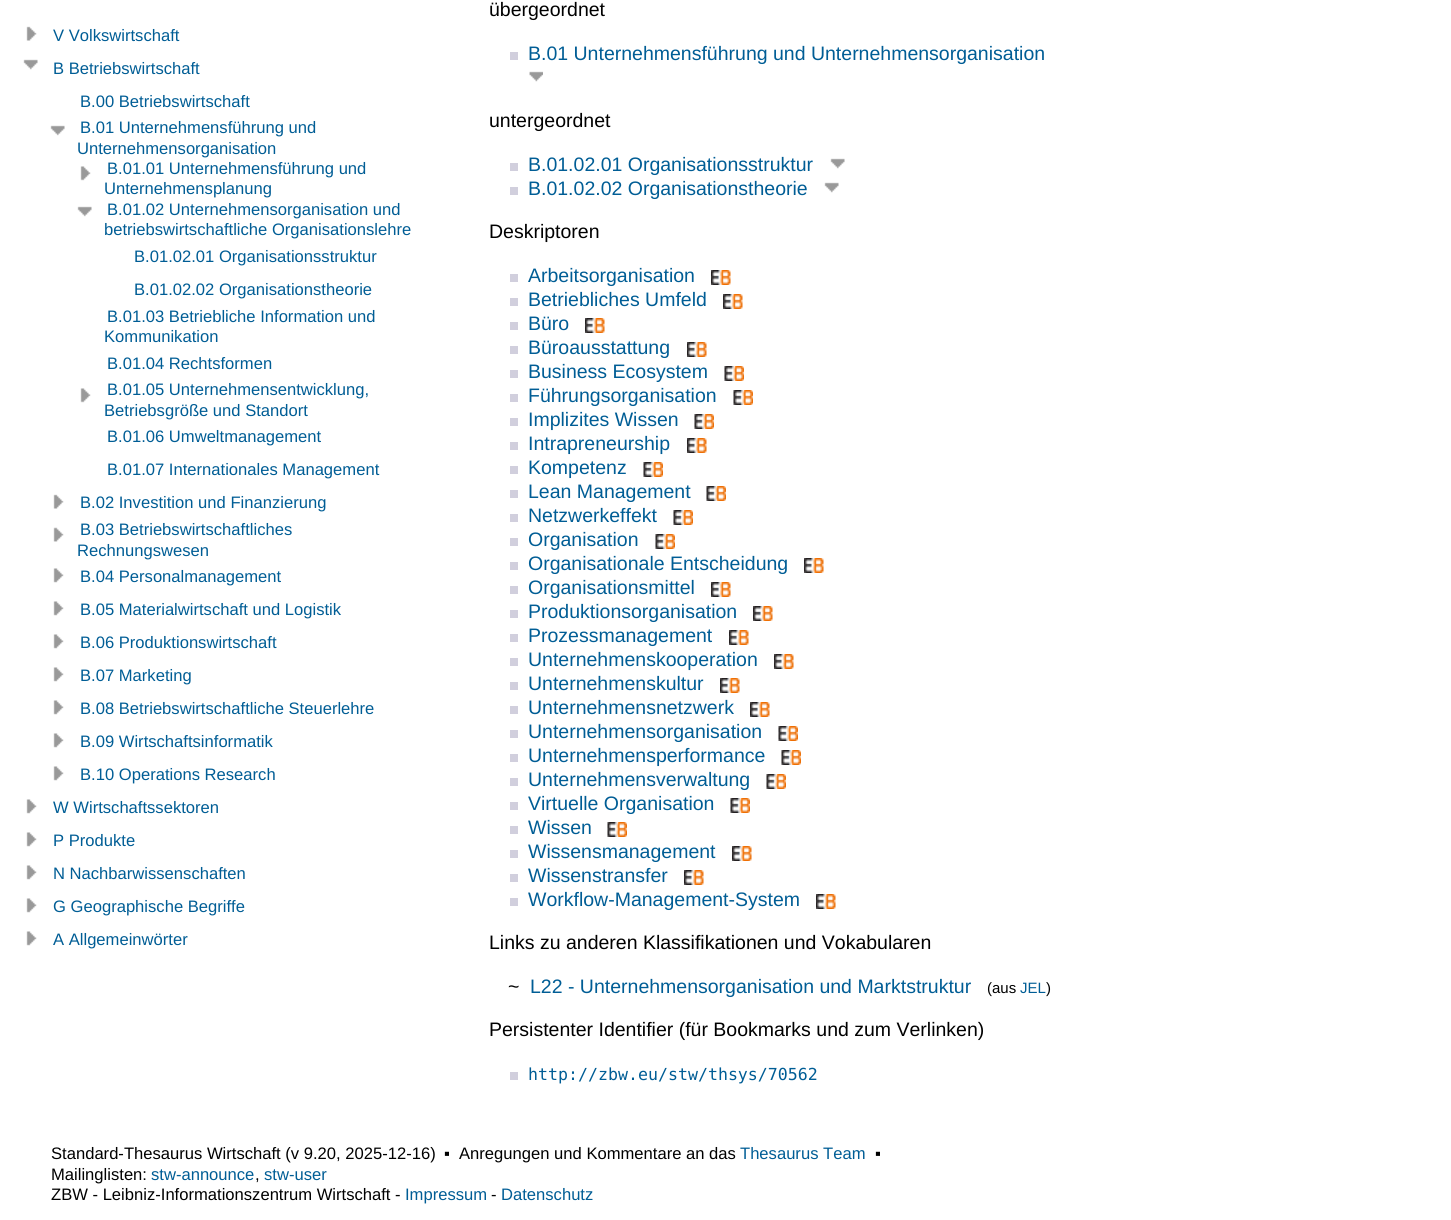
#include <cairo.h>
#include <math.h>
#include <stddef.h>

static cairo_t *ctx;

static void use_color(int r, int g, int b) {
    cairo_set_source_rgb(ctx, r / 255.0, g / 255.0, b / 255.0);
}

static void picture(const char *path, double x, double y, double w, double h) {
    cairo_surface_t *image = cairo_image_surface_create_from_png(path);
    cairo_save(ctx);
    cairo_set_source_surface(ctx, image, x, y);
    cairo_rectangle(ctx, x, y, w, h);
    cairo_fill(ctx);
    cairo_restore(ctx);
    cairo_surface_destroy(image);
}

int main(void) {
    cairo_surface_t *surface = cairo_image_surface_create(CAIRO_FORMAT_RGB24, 1451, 1220);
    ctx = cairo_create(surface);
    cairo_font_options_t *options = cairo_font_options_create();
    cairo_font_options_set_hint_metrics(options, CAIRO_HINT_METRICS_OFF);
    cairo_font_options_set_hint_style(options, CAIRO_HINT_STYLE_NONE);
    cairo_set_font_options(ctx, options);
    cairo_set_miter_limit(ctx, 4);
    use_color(255, 255, 255);
    cairo_paint(ctx);
    picture("img1.png", 26, 26, 11, 15);
    cairo_select_font_face(ctx, "Liberation Sans", CAIRO_FONT_SLANT_NORMAL, CAIRO_FONT_WEIGHT_NORMAL);
    cairo_set_font_size(ctx, 16.6);
    use_color(0, 93, 149);
    cairo_move_to(ctx, 53, 41);
    cairo_show_text(ctx, "V Volkswirtschaft");
    picture("img2.png", 23, 59, 15, 11);
    cairo_move_to(ctx, 53, 74);
    cairo_show_text(ctx, "B Betriebswirtschaft");
    cairo_move_to(ctx, 80, 107);
    cairo_show_text(ctx, "B.00 Betriebswirtschaft");
    picture("img3.png", 50, 125, 15, 11);
    cairo_move_to(ctx, 80, 133);
    cairo_show_text(ctx, "B.01 Unternehmensführung und");
    cairo_move_to(ctx, 77, 154);
    cairo_show_text(ctx, "Unternehmensorganisation");
    picture("img4.png", 80, 166, 11, 15);
    cairo_move_to(ctx, 107, 174);
    cairo_show_text(ctx, "B.01.01 Unternehmensführung und");
    cairo_move_to(ctx, 104, 194);
    cairo_show_text(ctx, "Unternehmensplanung");
    picture("img3.png", 77, 206, 15, 11);
    cairo_move_to(ctx, 107, 215);
    cairo_show_text(ctx, "B.01.02 Unternehmensorganisation und");
    cairo_move_to(ctx, 104, 235);
    cairo_show_text(ctx, "betriebswirtschaftliche Organisationslehre");
    cairo_move_to(ctx, 134, 262);
    cairo_show_text(ctx, "B.01.02.01 Organisationsstruktur");
    cairo_move_to(ctx, 134, 295);
    cairo_show_text(ctx, "B.01.02.02 Organisationstheorie");
    cairo_move_to(ctx, 107, 322);
    cairo_show_text(ctx, "B.01.03 Betriebliche Information und");
    cairo_move_to(ctx, 104, 342);
    cairo_show_text(ctx, "Kommunikation");
    cairo_move_to(ctx, 107, 369);
    cairo_show_text(ctx, "B.01.04 Rechtsformen");
    picture("img4.png", 80, 388, 11, 15);
    cairo_move_to(ctx, 107, 395);
    cairo_show_text(ctx, "B.01.05 Unternehmensentwicklung,");
    cairo_move_to(ctx, 104, 416);
    cairo_show_text(ctx, "Betriebsgröße und Standort");
    cairo_move_to(ctx, 107, 442);
    cairo_show_text(ctx, "B.01.06 Umweltmanagement");
    cairo_move_to(ctx, 107, 475);
    cairo_show_text(ctx, "B.01.07 Internationales Management");
    picture("img1.png", 53, 494, 11, 15);
    cairo_move_to(ctx, 80, 508);
    cairo_show_text(ctx, "B.02 Investition und Finanzierung");
    picture("img5.png", 53, 527, 11, 15);
    cairo_move_to(ctx, 80, 535);
    cairo_show_text(ctx, "B.03 Betriebswirtschaftliches");
    cairo_move_to(ctx, 77, 556);
    cairo_show_text(ctx, "Rechnungswesen");
    picture("img6.png", 53, 568, 11, 15);
    cairo_move_to(ctx, 80, 582);
    cairo_show_text(ctx, "B.04 Personalmanagement");
    picture("img6.png", 53, 601, 11, 15);
    cairo_move_to(ctx, 80, 615);
    cairo_show_text(ctx, "B.05 Materialwirtschaft und Logistik");
    picture("img6.png", 53, 634, 11, 15);
    cairo_move_to(ctx, 80, 648);
    cairo_show_text(ctx, "B.06 Produktionswirtschaft");
    picture("img6.png", 53, 667, 11, 15);
    cairo_move_to(ctx, 80, 681);
    cairo_show_text(ctx, "B.07 Marketing");
    picture("img6.png", 53, 700, 11, 15);
    cairo_move_to(ctx, 80, 714);
    cairo_show_text(ctx, "B.08 Betriebswirtschaftliche Steuerlehre");
    picture("img6.png", 53, 733, 11, 15);
    cairo_move_to(ctx, 80, 747);
    cairo_show_text(ctx, "B.09 Wirtschaftsinformatik");
    picture("img6.png", 53, 766, 11, 15);
    cairo_move_to(ctx, 80, 780);
    cairo_show_text(ctx, "B.10 Operations Research");
    picture("img6.png", 26, 799, 11, 15);
    cairo_move_to(ctx, 53, 813);
    cairo_show_text(ctx, "W Wirtschaftssektoren");
    picture("img6.png", 26, 832, 11, 15);
    cairo_move_to(ctx, 53, 846);
    cairo_show_text(ctx, "P Produkte");
    picture("img6.png", 26, 865, 11, 15);
    cairo_move_to(ctx, 53, 879);
    cairo_show_text(ctx, "N Nachbarwissenschaften");
    picture("img6.png", 26, 898, 11, 15);
    cairo_move_to(ctx, 53, 912);
    cairo_show_text(ctx, "G Geographische Begriffe");
    picture("img6.png", 26, 931, 11, 15);
    cairo_move_to(ctx, 53, 945);
    cairo_show_text(ctx, "A Allgemeinwörter");
    cairo_set_font_size(ctx, 19.5);
    use_color(0, 0, 0);
    cairo_move_to(ctx, 489, 16);
    cairo_show_text(ctx, "übergeordnet");
    use_color(209, 207, 221);
    cairo_rectangle(ctx, 510, 52, 8, 8);
    cairo_fill(ctx);
    use_color(0, 93, 149);
    cairo_move_to(ctx, 528, 60);
    cairo_show_text(ctx, "B.01 Unternehmensführung und Unternehmensorganisation");
    picture("img7.png", 529, 71, 14, 11);
    use_color(0, 0, 0);
    cairo_move_to(ctx, 489, 127);
    cairo_show_text(ctx, "untergeordnet");
    use_color(209, 207, 221);
    cairo_rectangle(ctx, 510, 163, 8, 8);
    cairo_fill(ctx);
    use_color(0, 93, 149);
    cairo_move_to(ctx, 528, 171);
    cairo_show_text(ctx, "B.01.02.01 Organisationsstruktur");
    picture("img2.png", 830, 158, 15, 11);
    use_color(209, 207, 221);
    cairo_rectangle(ctx, 510, 187, 8, 8);
    cairo_fill(ctx);
    use_color(0, 93, 149);
    cairo_move_to(ctx, 528, 195);
    cairo_show_text(ctx, "B.01.02.02 Organisationstheorie");
    picture("img2.png", 824, 182, 15, 11);
    use_color(0, 0, 0);
    cairo_move_to(ctx, 489, 238);
    cairo_show_text(ctx, "Deskriptoren");
    use_color(209, 207, 221);
    cairo_rectangle(ctx, 510, 274, 8, 8);
    cairo_fill(ctx);
    use_color(0, 93, 149);
    cairo_move_to(ctx, 528, 282);
    cairo_show_text(ctx, "Arbeitsorganisation");
    picture("img8.png", 711, 270, 20, 15);
    use_color(209, 207, 221);
    cairo_rectangle(ctx, 510, 298, 8, 8);
    cairo_fill(ctx);
    use_color(0, 93, 149);
    cairo_move_to(ctx, 528, 306);
    cairo_show_text(ctx, "Betriebliches Umfeld");
    picture("img8.png", 723, 294, 20, 15);
    use_color(209, 207, 221);
    cairo_rectangle(ctx, 510, 322, 8, 8);
    cairo_fill(ctx);
    use_color(0, 93, 149);
    cairo_move_to(ctx, 528, 330);
    cairo_show_text(ctx, "Büro");
    picture("img8.png", 585, 318, 20, 15);
    use_color(209, 207, 221);
    cairo_rectangle(ctx, 510, 346, 8, 8);
    cairo_fill(ctx);
    use_color(0, 93, 149);
    cairo_move_to(ctx, 528, 354);
    cairo_show_text(ctx, "Büroausstattung");
    picture("img9.png", 687, 342, 20, 15);
    use_color(209, 207, 221);
    cairo_rectangle(ctx, 510, 370, 8, 8);
    cairo_fill(ctx);
    use_color(0, 93, 149);
    cairo_move_to(ctx, 528, 378);
    cairo_show_text(ctx, "Business Ecosystem");
    picture("img10.png", 724, 366, 20, 15);
    use_color(209, 207, 221);
    cairo_rectangle(ctx, 510, 394, 8, 8);
    cairo_fill(ctx);
    use_color(0, 93, 149);
    cairo_move_to(ctx, 528, 402);
    cairo_show_text(ctx, "Führungsorganisation");
    picture("img10.png", 733, 390, 20, 15);
    use_color(209, 207, 221);
    cairo_rectangle(ctx, 510, 418, 8, 8);
    cairo_fill(ctx);
    use_color(0, 93, 149);
    cairo_move_to(ctx, 528, 426);
    cairo_show_text(ctx, "Implizites Wissen");
    picture("img10.png", 694, 414, 20, 15);
    use_color(209, 207, 221);
    cairo_rectangle(ctx, 510, 442, 8, 8);
    cairo_fill(ctx);
    use_color(0, 93, 149);
    cairo_move_to(ctx, 528, 450);
    cairo_show_text(ctx, "Intrapreneurship");
    picture("img9.png", 687, 438, 20, 15);
    use_color(209, 207, 221);
    cairo_rectangle(ctx, 510, 466, 8, 8);
    cairo_fill(ctx);
    use_color(0, 93, 149);
    cairo_move_to(ctx, 528, 474);
    cairo_show_text(ctx, "Kompetenz");
    picture("img10.png", 643, 462, 20, 15);
    use_color(209, 207, 221);
    cairo_rectangle(ctx, 510, 490, 8, 8);
    cairo_fill(ctx);
    use_color(0, 93, 149);
    cairo_move_to(ctx, 528, 498);
    cairo_show_text(ctx, "Lean Management");
    picture("img10.png", 706, 486, 20, 15);
    use_color(209, 207, 221);
    cairo_rectangle(ctx, 510, 514, 8, 8);
    cairo_fill(ctx);
    use_color(0, 93, 149);
    cairo_move_to(ctx, 528, 522);
    cairo_show_text(ctx, "Netzwerkeffekt");
    picture("img10.png", 673, 510, 20, 15);
    use_color(209, 207, 221);
    cairo_rectangle(ctx, 510, 538, 8, 8);
    cairo_fill(ctx);
    use_color(0, 93, 149);
    cairo_move_to(ctx, 528, 546);
    cairo_show_text(ctx, "Organisation");
    picture("img10.png", 655, 534, 20, 15);
    use_color(209, 207, 221);
    cairo_rectangle(ctx, 510, 562, 8, 8);
    cairo_fill(ctx);
    use_color(0, 93, 149);
    cairo_move_to(ctx, 528, 570);
    cairo_show_text(ctx, "Organisationale Entscheidung");
    picture("img9.png", 804, 558, 20, 15);
    use_color(209, 207, 221);
    cairo_rectangle(ctx, 510, 586, 8, 8);
    cairo_fill(ctx);
    use_color(0, 93, 149);
    cairo_move_to(ctx, 528, 594);
    cairo_show_text(ctx, "Organisationsmittel");
    picture("img8.png", 711, 582, 20, 15);
    use_color(209, 207, 221);
    cairo_rectangle(ctx, 510, 610, 8, 8);
    cairo_fill(ctx);
    use_color(0, 93, 149);
    cairo_move_to(ctx, 528, 618);
    cairo_show_text(ctx, "Produktionsorganisation");
    picture("img11.png", 753, 606, 20, 15);
    use_color(209, 207, 221);
    cairo_rectangle(ctx, 510, 634, 8, 8);
    cairo_fill(ctx);
    use_color(0, 93, 149);
    cairo_move_to(ctx, 528, 642);
    cairo_show_text(ctx, "Prozessmanagement");
    picture("img8.png", 729, 630, 20, 15);
    use_color(209, 207, 221);
    cairo_rectangle(ctx, 510, 658, 8, 8);
    cairo_fill(ctx);
    use_color(0, 93, 149);
    cairo_move_to(ctx, 528, 666);
    cairo_show_text(ctx, "Unternehmenskooperation");
    picture("img9.png", 774, 654, 20, 15);
    use_color(209, 207, 221);
    cairo_rectangle(ctx, 510, 682, 8, 8);
    cairo_fill(ctx);
    use_color(0, 93, 149);
    cairo_move_to(ctx, 528, 690);
    cairo_show_text(ctx, "Unternehmenskultur");
    picture("img8.png", 720, 678, 20, 15);
    use_color(209, 207, 221);
    cairo_rectangle(ctx, 510, 706, 8, 8);
    cairo_fill(ctx);
    use_color(0, 93, 149);
    cairo_move_to(ctx, 528, 714);
    cairo_show_text(ctx, "Unternehmensnetzwerk");
    picture("img8.png", 750, 702, 20, 15);
    use_color(209, 207, 221);
    cairo_rectangle(ctx, 510, 730, 8, 8);
    cairo_fill(ctx);
    use_color(0, 93, 149);
    cairo_move_to(ctx, 528, 738);
    cairo_show_text(ctx, "Unternehmensorganisation");
    picture("img12.png", 778, 726, 20, 15);
    use_color(209, 207, 221);
    cairo_rectangle(ctx, 510, 754, 8, 8);
    cairo_fill(ctx);
    use_color(0, 93, 149);
    cairo_move_to(ctx, 528, 762);
    cairo_show_text(ctx, "Unternehmensperformance");
    picture("img12.png", 781, 750, 20, 15);
    use_color(209, 207, 221);
    cairo_rectangle(ctx, 510, 778, 8, 8);
    cairo_fill(ctx);
    use_color(0, 93, 149);
    cairo_move_to(ctx, 528, 786);
    cairo_show_text(ctx, "Unternehmensverwaltung");
    picture("img12.png", 766, 774, 20, 15);
    use_color(209, 207, 221);
    cairo_rectangle(ctx, 510, 802, 8, 8);
    cairo_fill(ctx);
    use_color(0, 93, 149);
    cairo_move_to(ctx, 528, 810);
    cairo_show_text(ctx, "Virtuelle Organisation");
    picture("img10.png", 730, 798, 20, 15);
    use_color(209, 207, 221);
    cairo_rectangle(ctx, 510, 826, 8, 8);
    cairo_fill(ctx);
    use_color(0, 93, 149);
    cairo_move_to(ctx, 528, 834);
    cairo_show_text(ctx, "Wissen");
    picture("img10.png", 607, 822, 20, 15);
    use_color(209, 207, 221);
    cairo_rectangle(ctx, 510, 850, 8, 8);
    cairo_fill(ctx);
    use_color(0, 93, 149);
    cairo_move_to(ctx, 528, 858);
    cairo_show_text(ctx, "Wissensmanagement");
    picture("img8.png", 732, 846, 20, 15);
    use_color(209, 207, 221);
    cairo_rectangle(ctx, 510, 874, 8, 8);
    cairo_fill(ctx);
    use_color(0, 93, 149);
    cairo_move_to(ctx, 528, 882);
    cairo_show_text(ctx, "Wissenstransfer");
    picture("img9.png", 684, 870, 20, 15);
    use_color(209, 207, 221);
    cairo_rectangle(ctx, 510, 898, 8, 8);
    cairo_fill(ctx);
    use_color(0, 93, 149);
    cairo_move_to(ctx, 528, 906);
    cairo_show_text(ctx, "Workflow-Management-System");
    picture("img9.png", 816, 894, 20, 15);
    use_color(0, 0, 0);
    cairo_move_to(ctx, 489, 949);
    cairo_show_text(ctx, "Links zu anderen Klassifikationen und Vokabularen");
    cairo_move_to(ctx, 508, 993);
    cairo_show_text(ctx, "~");
    use_color(0, 93, 149);
    cairo_move_to(ctx, 530, 993);
    cairo_show_text(ctx, "L22 - Unternehmensorganisation und Marktstruktur");
    cairo_set_font_size(ctx, 15);
    use_color(0, 0, 0);
    cairo_move_to(ctx, 987, 993);
    cairo_show_text(ctx, "(aus");
    use_color(0, 93, 149);
    cairo_move_to(ctx, 1020, 993);
    cairo_show_text(ctx, "JEL");
    use_color(0, 0, 0);
    cairo_move_to(ctx, 1046, 993);
    cairo_show_text(ctx, ")");
    cairo_set_font_size(ctx, 19.5);
    cairo_move_to(ctx, 489, 1036);
    cairo_show_text(ctx, "Persistenter Identifier (für Bookmarks und zum Verlinken)");
    use_color(209, 207, 221);
    cairo_rectangle(ctx, 510, 1072, 8, 8);
    cairo_fill(ctx);
    cairo_select_font_face(ctx, "DejaVu Sans Mono", CAIRO_FONT_SLANT_NORMAL, CAIRO_FONT_WEIGHT_NORMAL);
    cairo_set_font_size(ctx, 16.6);
    use_color(0, 93, 149);
    cairo_move_to(ctx, 528, 1080);
    cairo_show_text(ctx, "http://zbw.eu/stw/thsys/70562");
    cairo_select_font_face(ctx, "Liberation Sans", CAIRO_FONT_SLANT_NORMAL, CAIRO_FONT_WEIGHT_NORMAL);
    use_color(0, 0, 0);
    cairo_move_to(ctx, 51, 1159);
    cairo_show_text(ctx, "Standard-Thesaurus Wirtschaft (v 9.20, 2025-12-16)");
    cairo_move_to(ctx, 444, 1159);
    cairo_show_text(ctx, "▪");
    cairo_move_to(ctx, 459, 1159);
    cairo_show_text(ctx, "Anregungen und Kommentare an das");
    use_color(0, 93, 149);
    cairo_move_to(ctx, 740, 1159);
    cairo_show_text(ctx, "Thesaurus Team");
    use_color(0, 0, 0);
    cairo_move_to(ctx, 875, 1159);
    cairo_show_text(ctx, "▪");
    cairo_move_to(ctx, 51, 1180);
    cairo_show_text(ctx, "Mailinglisten:");
    use_color(0, 93, 149);
    cairo_move_to(ctx, 151, 1180);
    cairo_show_text(ctx, "stw-announce");
    use_color(0, 0, 0);
    cairo_move_to(ctx, 255, 1180);
    cairo_show_text(ctx, ",");
    use_color(0, 93, 149);
    cairo_move_to(ctx, 264, 1180);
    cairo_show_text(ctx, "stw-user");
    use_color(0, 0, 0);
    cairo_move_to(ctx, 51, 1200);
    cairo_show_text(ctx, "ZBW - Leibniz-Informationszentrum Wirtschaft -");
    use_color(0, 93, 149);
    cairo_move_to(ctx, 405, 1200);
    cairo_show_text(ctx, "Impressum");
    use_color(0, 0, 0);
    cairo_move_to(ctx, 491, 1200);
    cairo_show_text(ctx, "-");
    use_color(0, 93, 149);
    cairo_move_to(ctx, 501, 1200);
    cairo_show_text(ctx, "Datenschutz");
    cairo_surface_write_to_png(surface, "result.png");
    cairo_font_options_destroy(options);
    cairo_destroy(ctx);
    cairo_surface_destroy(surface);
    return 0;
}
